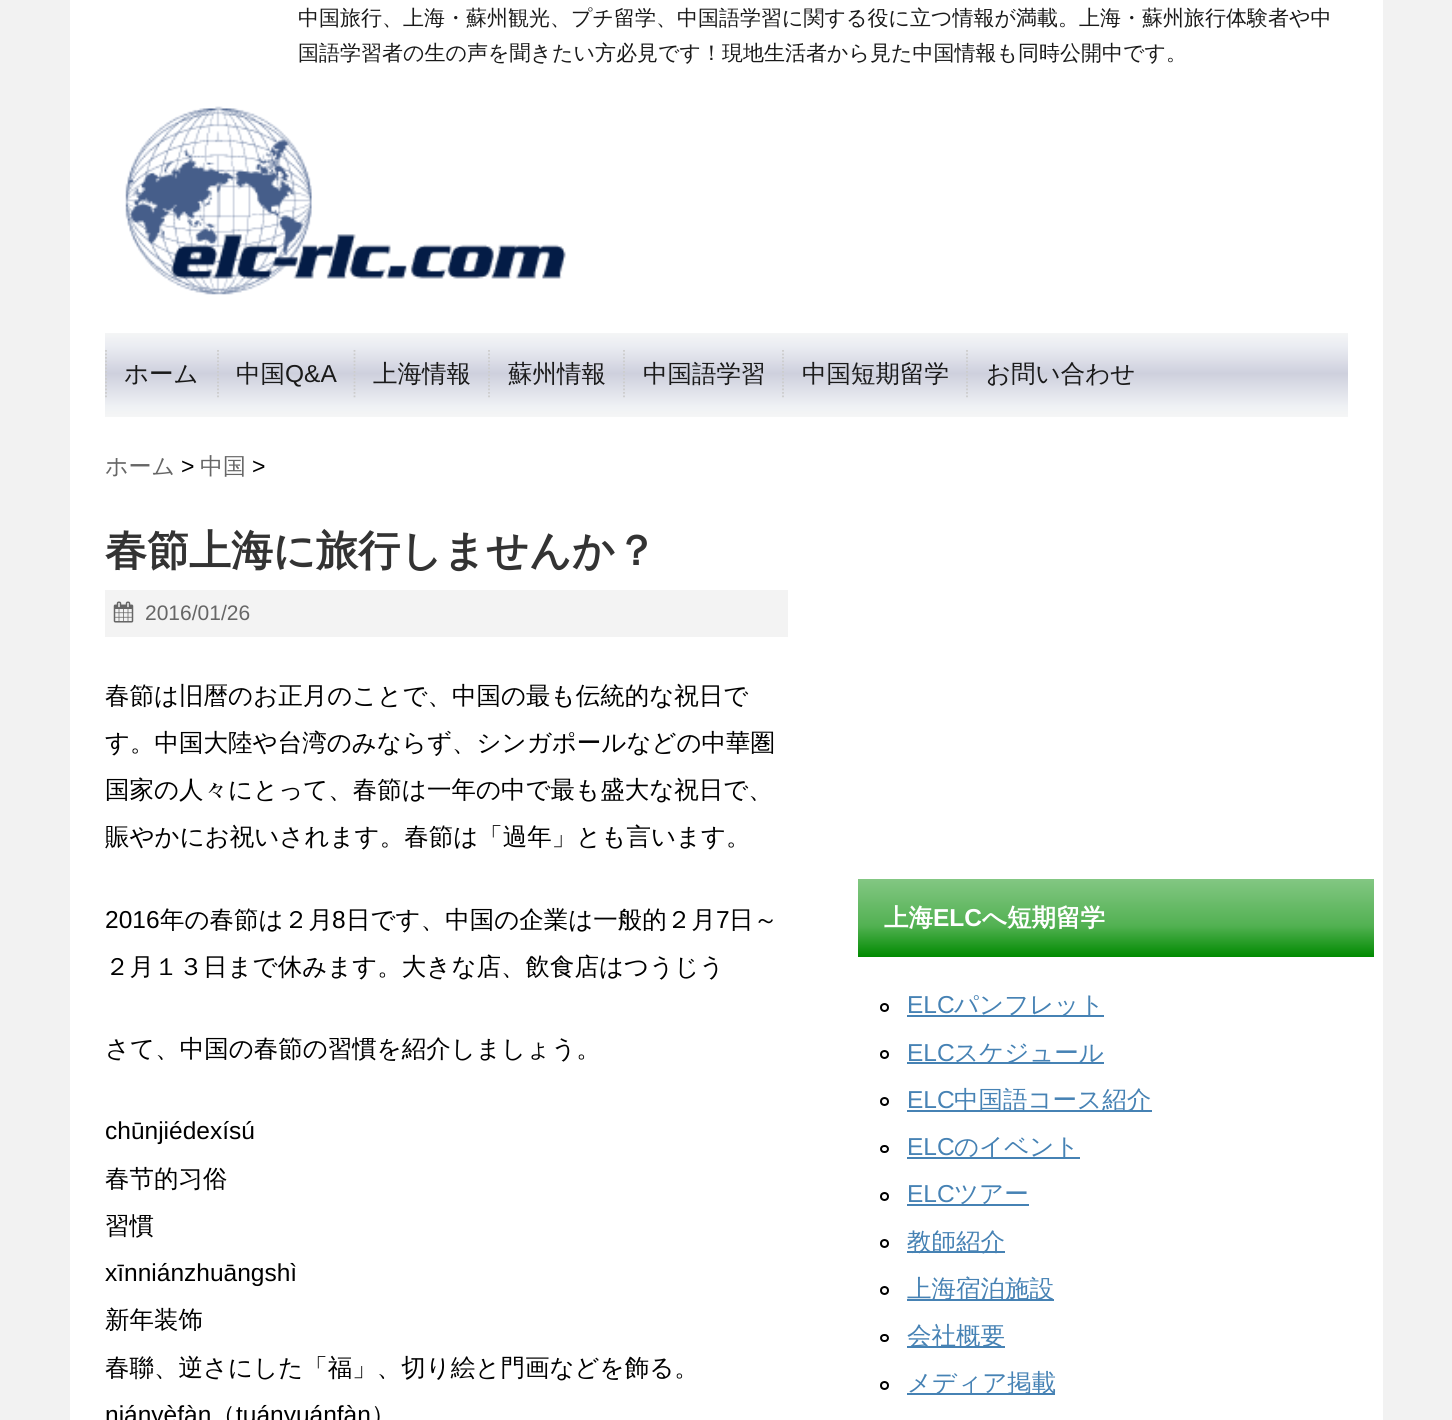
#include <cairo.h>
#include <math.h>
#include <stddef.h>

static cairo_t *ctx;

static void use_color(int r, int g, int b) {
    cairo_set_source_rgb(ctx, r / 255.0, g / 255.0, b / 255.0);
}

static void round_rect(double x, double y, double w, double h, double r) {
    cairo_new_sub_path(ctx);
    cairo_arc(ctx, x + w - r, y + h - r, r, 0, M_PI / 2);
    cairo_arc(ctx, x + r, y + h - r, r, M_PI / 2, M_PI);
    cairo_arc(ctx, x + r, y + r, r, M_PI, 1.5 * M_PI);
    cairo_arc(ctx, x + w - r, y + r, r, 1.5 * M_PI, 2 * M_PI);
    cairo_close_path(ctx);
}

static void picture(const char *path, double x, double y, double w, double h) {
    cairo_surface_t *image = cairo_image_surface_create_from_png(path);
    cairo_save(ctx);
    cairo_set_source_surface(ctx, image, x, y);
    cairo_rectangle(ctx, x, y, w, h);
    cairo_fill(ctx);
    cairo_restore(ctx);
    cairo_surface_destroy(image);
}

int main(void) {
    cairo_surface_t *surface = cairo_image_surface_create(CAIRO_FORMAT_RGB24, 1452, 1420);
    ctx = cairo_create(surface);
    cairo_font_options_t *options = cairo_font_options_create();
    cairo_font_options_set_hint_metrics(options, CAIRO_HINT_METRICS_OFF);
    cairo_font_options_set_hint_style(options, CAIRO_HINT_STYLE_NONE);
    cairo_set_font_options(ctx, options);
    cairo_set_miter_limit(ctx, 4);
    cairo_pattern_t *gradient;
    use_color(242, 242, 242);
    cairo_paint(ctx);
    use_color(255, 255, 255);
    cairo_rectangle(ctx, 70, 0, 1313, 1420);
    cairo_fill(ctx);
    cairo_select_font_face(ctx, "WenQuanYi Zen Hei Medium", CAIRO_FONT_SLANT_NORMAL, CAIRO_FONT_WEIGHT_NORMAL);
    cairo_set_font_size(ctx, 21);
    use_color(26, 26, 26);
    cairo_move_to(ctx, 298, 25);
    cairo_show_text(ctx, "中国旅行、上海・蘇州観光、プチ留学、中国語学習に関する役に立つ情報が満載。上海・蘇州旅行体験者や中");
    cairo_move_to(ctx, 298, 60);
    cairo_show_text(ctx, "国語学習者の生の声を聞きたい方必見です！現地生活者から見た中国情報も同時公開中です。");
    picture("img1.png", 125, 106, 441, 189);
    gradient = cairo_pattern_create_linear(726, 332, 726, 417);
    cairo_pattern_add_color_stop_rgba(gradient, 0, 0.961, 0.965, 0.965, 1);
    cairo_pattern_add_color_stop_rgba(gradient, 0.17, 0.918, 0.925, 0.949, 1);
    cairo_pattern_add_color_stop_rgba(gradient, 0.49, 0.808, 0.816, 0.867, 1);
    cairo_pattern_add_color_stop_rgba(gradient, 0.87, 0.937, 0.945, 0.957, 1);
    cairo_pattern_add_color_stop_rgba(gradient, 1, 0.961, 0.965, 0.965, 1);
    cairo_set_source(ctx, gradient);
    cairo_pattern_destroy(gradient);
    cairo_rectangle(ctx, 105, 333, 1243, 84);
    cairo_fill(ctx);
    cairo_new_path(ctx);
    cairo_move_to(ctx, 106, 350);
    cairo_line_to(ctx, 106, 399);
    use_color(204, 204, 204);
    cairo_set_line_width(ctx, 1.8);
    cairo_set_dash(ctx, (double[]){1.75, 1.75}, 2, 0);
    cairo_stroke(ctx);
    cairo_set_font_size(ctx, 24.5);
    use_color(26, 26, 26);
    cairo_move_to(ctx, 124, 382);
    cairo_show_text(ctx, "ホーム");
    cairo_new_path(ctx);
    cairo_move_to(ctx, 218, 350);
    cairo_line_to(ctx, 218, 399);
    use_color(204, 204, 204);
    cairo_stroke(ctx);
    use_color(26, 26, 26);
    cairo_move_to(ctx, 236, 382);
    cairo_show_text(ctx, "中国");
    cairo_select_font_face(ctx, "Liberation Sans", CAIRO_FONT_SLANT_NORMAL, CAIRO_FONT_WEIGHT_NORMAL);
    cairo_move_to(ctx, 285, 382);
    cairo_show_text(ctx, "Q&A");
    cairo_new_path(ctx);
    cairo_move_to(ctx, 354.5, 350);
    cairo_line_to(ctx, 354.5, 399);
    use_color(204, 204, 204);
    cairo_stroke(ctx);
    cairo_select_font_face(ctx, "WenQuanYi Zen Hei Medium", CAIRO_FONT_SLANT_NORMAL, CAIRO_FONT_WEIGHT_NORMAL);
    use_color(26, 26, 26);
    cairo_move_to(ctx, 373, 382);
    cairo_show_text(ctx, "上海情報");
    cairo_new_path(ctx);
    cairo_move_to(ctx, 489, 350);
    cairo_line_to(ctx, 489, 399);
    use_color(204, 204, 204);
    cairo_stroke(ctx);
    use_color(26, 26, 26);
    cairo_move_to(ctx, 508, 382);
    cairo_show_text(ctx, "蘇州情報");
    cairo_new_path(ctx);
    cairo_move_to(ctx, 624, 350);
    cairo_line_to(ctx, 624, 399);
    use_color(204, 204, 204);
    cairo_stroke(ctx);
    use_color(26, 26, 26);
    cairo_move_to(ctx, 643, 382);
    cairo_show_text(ctx, "中国語学習");
    cairo_new_path(ctx);
    cairo_move_to(ctx, 783, 350);
    cairo_line_to(ctx, 783, 399);
    use_color(204, 204, 204);
    cairo_stroke(ctx);
    use_color(26, 26, 26);
    cairo_move_to(ctx, 802, 382);
    cairo_show_text(ctx, "中国短期留学");
    cairo_new_path(ctx);
    cairo_move_to(ctx, 967, 350);
    cairo_line_to(ctx, 967, 399);
    use_color(204, 204, 204);
    cairo_stroke(ctx);
    use_color(26, 26, 26);
    cairo_move_to(ctx, 986, 382);
    cairo_show_text(ctx, "お問い合わせ");
    cairo_set_font_size(ctx, 23);
    use_color(102, 102, 102);
    cairo_move_to(ctx, 105, 474);
    cairo_show_text(ctx, "ホーム");
    cairo_select_font_face(ctx, "Liberation Sans", CAIRO_FONT_SLANT_NORMAL, CAIRO_FONT_WEIGHT_NORMAL);
    use_color(0, 0, 0);
    cairo_move_to(ctx, 181, 474);
    cairo_show_text(ctx, ">");
    cairo_select_font_face(ctx, "WenQuanYi Zen Hei Medium", CAIRO_FONT_SLANT_NORMAL, CAIRO_FONT_WEIGHT_NORMAL);
    use_color(102, 102, 102);
    cairo_move_to(ctx, 200, 474);
    cairo_show_text(ctx, "中国");
    cairo_select_font_face(ctx, "Liberation Sans", CAIRO_FONT_SLANT_NORMAL, CAIRO_FONT_WEIGHT_NORMAL);
    use_color(0, 0, 0);
    cairo_move_to(ctx, 252, 474);
    cairo_show_text(ctx, ">");
    cairo_select_font_face(ctx, "WenQuanYi Zen Hei", CAIRO_FONT_SLANT_NORMAL, CAIRO_FONT_WEIGHT_BOLD);
    cairo_set_font_size(ctx, 42);
    use_color(51, 51, 51);
    cairo_move_to(ctx, 105, 565);
    cairo_show_text(ctx, "春節上海に旅行しませんか？");
    use_color(243, 243, 243);
    cairo_rectangle(ctx, 105, 590, 683, 47);
    cairo_fill(ctx);
    picture("img2.png", 113, 601, 21, 22);
    cairo_select_font_face(ctx, "Liberation Sans", CAIRO_FONT_SLANT_NORMAL, CAIRO_FONT_WEIGHT_NORMAL);
    cairo_set_font_size(ctx, 21);
    use_color(102, 102, 102);
    cairo_move_to(ctx, 145, 620);
    cairo_show_text(ctx, "2016/01/26");
    cairo_select_font_face(ctx, "WenQuanYi Zen Hei Medium", CAIRO_FONT_SLANT_NORMAL, CAIRO_FONT_WEIGHT_NORMAL);
    cairo_set_font_size(ctx, 24.5);
    use_color(0, 0, 0);
    cairo_move_to(ctx, 105, 704);
    cairo_show_text(ctx, "春節は旧暦のお正月のことで、中国の最も伝統的な祝日で");
    cairo_move_to(ctx, 105, 751);
    cairo_show_text(ctx, "す。中国大陸や台湾のみならず、シンガポールなどの中華圏");
    cairo_move_to(ctx, 105, 798);
    cairo_show_text(ctx, "国家の人々にとって、春節は一年の中で最も盛大な祝日で、");
    cairo_move_to(ctx, 105, 845);
    cairo_show_text(ctx, "賑やかにお祝いされます。春節は「過年」とも言います。");
    cairo_select_font_face(ctx, "Liberation Sans", CAIRO_FONT_SLANT_NORMAL, CAIRO_FONT_WEIGHT_NORMAL);
    cairo_move_to(ctx, 105, 928);
    cairo_show_text(ctx, "2016");
    cairo_select_font_face(ctx, "WenQuanYi Zen Hei Medium", CAIRO_FONT_SLANT_NORMAL, CAIRO_FONT_WEIGHT_NORMAL);
    cairo_move_to(ctx, 160, 928);
    cairo_show_text(ctx, "年の春節は２月");
    cairo_select_font_face(ctx, "Liberation Sans", CAIRO_FONT_SLANT_NORMAL, CAIRO_FONT_WEIGHT_NORMAL);
    cairo_move_to(ctx, 332, 928);
    cairo_show_text(ctx, "8");
    cairo_select_font_face(ctx, "WenQuanYi Zen Hei Medium", CAIRO_FONT_SLANT_NORMAL, CAIRO_FONT_WEIGHT_NORMAL);
    cairo_move_to(ctx, 346, 928);
    cairo_show_text(ctx, "日です、中国の企業は一般的２月");
    cairo_select_font_face(ctx, "Liberation Sans", CAIRO_FONT_SLANT_NORMAL, CAIRO_FONT_WEIGHT_NORMAL);
    cairo_move_to(ctx, 716, 928);
    cairo_show_text(ctx, "7");
    cairo_select_font_face(ctx, "WenQuanYi Zen Hei Medium", CAIRO_FONT_SLANT_NORMAL, CAIRO_FONT_WEIGHT_NORMAL);
    cairo_move_to(ctx, 729, 928);
    cairo_show_text(ctx, "日～");
    cairo_move_to(ctx, 105, 975);
    cairo_show_text(ctx, "２月１３日まで休みます。大きな店、飲食店はつうじう");
    cairo_move_to(ctx, 105, 1057);
    cairo_show_text(ctx, "さて、中国の春節の習慣を紹介しましょう。");
    cairo_select_font_face(ctx, "Liberation Sans", CAIRO_FONT_SLANT_NORMAL, CAIRO_FONT_WEIGHT_NORMAL);
    cairo_move_to(ctx, 105, 1139);
    cairo_show_text(ctx, "chūnjiédexísú");
    cairo_select_font_face(ctx, "WenQuanYi Zen Hei Medium", CAIRO_FONT_SLANT_NORMAL, CAIRO_FONT_WEIGHT_NORMAL);
    cairo_move_to(ctx, 105, 1187);
    cairo_show_text(ctx, "春节的习俗");
    cairo_move_to(ctx, 105, 1234);
    cairo_show_text(ctx, "習慣");
    cairo_select_font_face(ctx, "Liberation Sans", CAIRO_FONT_SLANT_NORMAL, CAIRO_FONT_WEIGHT_NORMAL);
    cairo_move_to(ctx, 105, 1281);
    cairo_show_text(ctx, "xīnniánzhuānɡshì");
    cairo_select_font_face(ctx, "WenQuanYi Zen Hei Medium", CAIRO_FONT_SLANT_NORMAL, CAIRO_FONT_WEIGHT_NORMAL);
    cairo_move_to(ctx, 105, 1328);
    cairo_show_text(ctx, "新年装饰");
    cairo_move_to(ctx, 105, 1376);
    cairo_show_text(ctx, "春聯、逆さにした「福」、切り絵と門画などを飾る。");
    cairo_select_font_face(ctx, "Liberation Sans", CAIRO_FONT_SLANT_NORMAL, CAIRO_FONT_WEIGHT_NORMAL);
    cairo_move_to(ctx, 105, 1423);
    cairo_show_text(ctx, "niányèfàn");
    cairo_select_font_face(ctx, "WenQuanYi Zen Hei Medium", CAIRO_FONT_SLANT_NORMAL, CAIRO_FONT_WEIGHT_NORMAL);
    cairo_move_to(ctx, 211, 1423);
    cairo_show_text(ctx, "（");
    cairo_select_font_face(ctx, "Liberation Sans", CAIRO_FONT_SLANT_NORMAL, CAIRO_FONT_WEIGHT_NORMAL);
    cairo_move_to(ctx, 236, 1423);
    cairo_show_text(ctx, "tuányuánfàn");
    cairo_select_font_face(ctx, "WenQuanYi Zen Hei Medium", CAIRO_FONT_SLANT_NORMAL, CAIRO_FONT_WEIGHT_NORMAL);
    cairo_move_to(ctx, 371, 1423);
    cairo_show_text(ctx, "）");
    gradient = cairo_pattern_create_linear(1116, 879, 1116, 957);
    cairo_pattern_add_color_stop_rgba(gradient, 0, 0.514, 0.78, 0.514, 1);
    cairo_pattern_add_color_stop_rgba(gradient, 0.6, 0.322, 0.694, 0.322, 1);
    cairo_pattern_add_color_stop_rgba(gradient, 1, 0, 0.541, 0, 1);
    cairo_set_source(ctx, gradient);
    cairo_pattern_destroy(gradient);
    cairo_rectangle(ctx, 858, 879, 516, 78);
    cairo_fill(ctx);
    cairo_select_font_face(ctx, "WenQuanYi Zen Hei", CAIRO_FONT_SLANT_NORMAL, CAIRO_FONT_WEIGHT_BOLD);
    use_color(255, 255, 255);
    cairo_move_to(ctx, 884, 926);
    cairo_show_text(ctx, "上海");
    cairo_select_font_face(ctx, "Liberation Sans", CAIRO_FONT_SLANT_NORMAL, CAIRO_FONT_WEIGHT_BOLD);
    cairo_move_to(ctx, 933, 926);
    cairo_show_text(ctx, "ELC");
    cairo_select_font_face(ctx, "WenQuanYi Zen Hei", CAIRO_FONT_SLANT_NORMAL, CAIRO_FONT_WEIGHT_BOLD);
    cairo_move_to(ctx, 982, 926);
    cairo_show_text(ctx, "へ短期留学");
    cairo_new_path(ctx);
    cairo_arc(ctx, 884.5, 1007.5, 3.5, 0, 2 * M_PI);
    use_color(0, 0, 0);
    cairo_set_line_width(ctx, 2);
    cairo_set_dash(ctx, NULL, 0, 0);
    cairo_stroke(ctx);
    cairo_select_font_face(ctx, "Liberation Sans", CAIRO_FONT_SLANT_NORMAL, CAIRO_FONT_WEIGHT_NORMAL);
    use_color(70, 130, 180);
    cairo_move_to(ctx, 907, 1013);
    cairo_show_text(ctx, "ELC");
    cairo_rectangle(ctx, 907, 1015, 197, 2);
    cairo_fill(ctx);
    cairo_select_font_face(ctx, "WenQuanYi Zen Hei Medium", CAIRO_FONT_SLANT_NORMAL, CAIRO_FONT_WEIGHT_NORMAL);
    cairo_move_to(ctx, 954, 1013);
    cairo_show_text(ctx, "パンフレット");
    cairo_new_path(ctx);
    cairo_arc(ctx, 884.5, 1054.5, 3.5, 0, 2 * M_PI);
    use_color(0, 0, 0);
    cairo_stroke(ctx);
    cairo_select_font_face(ctx, "Liberation Sans", CAIRO_FONT_SLANT_NORMAL, CAIRO_FONT_WEIGHT_NORMAL);
    use_color(70, 130, 180);
    cairo_move_to(ctx, 907, 1061);
    cairo_show_text(ctx, "ELC");
    cairo_rectangle(ctx, 907, 1062, 197, 2);
    cairo_fill(ctx);
    cairo_select_font_face(ctx, "WenQuanYi Zen Hei Medium", CAIRO_FONT_SLANT_NORMAL, CAIRO_FONT_WEIGHT_NORMAL);
    cairo_move_to(ctx, 954, 1061);
    cairo_show_text(ctx, "スケジュール");
    cairo_new_path(ctx);
    cairo_arc(ctx, 884.5, 1101.5, 3.5, 0, 2 * M_PI);
    use_color(0, 0, 0);
    cairo_stroke(ctx);
    cairo_select_font_face(ctx, "Liberation Sans", CAIRO_FONT_SLANT_NORMAL, CAIRO_FONT_WEIGHT_NORMAL);
    use_color(70, 130, 180);
    cairo_move_to(ctx, 907, 1108);
    cairo_show_text(ctx, "ELC");
    cairo_rectangle(ctx, 907, 1110, 245, 2);
    cairo_fill(ctx);
    cairo_select_font_face(ctx, "WenQuanYi Zen Hei Medium", CAIRO_FONT_SLANT_NORMAL, CAIRO_FONT_WEIGHT_NORMAL);
    cairo_move_to(ctx, 954, 1108);
    cairo_show_text(ctx, "中国語コース紹介");
    round_rect(881, 1146, 7, 6, 3);
    use_color(0, 0, 0);
    cairo_stroke(ctx);
    cairo_select_font_face(ctx, "Liberation Sans", CAIRO_FONT_SLANT_NORMAL, CAIRO_FONT_WEIGHT_NORMAL);
    use_color(70, 130, 180);
    cairo_move_to(ctx, 907, 1155);
    cairo_show_text(ctx, "ELC");
    cairo_rectangle(ctx, 907, 1157, 173, 2);
    cairo_fill(ctx);
    cairo_select_font_face(ctx, "WenQuanYi Zen Hei Medium", CAIRO_FONT_SLANT_NORMAL, CAIRO_FONT_WEIGHT_NORMAL);
    cairo_move_to(ctx, 954, 1155);
    cairo_show_text(ctx, "のイベント");
    cairo_new_path(ctx);
    cairo_arc(ctx, 884.5, 1196.5, 3.5, 0, 2 * M_PI);
    use_color(0, 0, 0);
    cairo_stroke(ctx);
    cairo_select_font_face(ctx, "Liberation Sans", CAIRO_FONT_SLANT_NORMAL, CAIRO_FONT_WEIGHT_NORMAL);
    use_color(70, 130, 180);
    cairo_move_to(ctx, 907, 1202);
    cairo_show_text(ctx, "ELC");
    cairo_rectangle(ctx, 907, 1204, 122, 2);
    cairo_fill(ctx);
    cairo_select_font_face(ctx, "WenQuanYi Zen Hei Medium", CAIRO_FONT_SLANT_NORMAL, CAIRO_FONT_WEIGHT_NORMAL);
    cairo_move_to(ctx, 954, 1202);
    cairo_show_text(ctx, "ツアー");
    cairo_new_path(ctx);
    cairo_arc(ctx, 884.5, 1243.5, 3.5, 0, 2 * M_PI);
    use_color(0, 0, 0);
    cairo_stroke(ctx);
    use_color(70, 130, 180);
    cairo_rectangle(ctx, 907, 1251, 98, 2);
    cairo_fill(ctx);
    cairo_move_to(ctx, 907, 1250);
    cairo_show_text(ctx, "教師紹介");
    cairo_new_path(ctx);
    cairo_arc(ctx, 884.5, 1290.5, 3.5, 0, 2 * M_PI);
    use_color(0, 0, 0);
    cairo_stroke(ctx);
    use_color(70, 130, 180);
    cairo_rectangle(ctx, 907, 1299, 147, 2);
    cairo_fill(ctx);
    cairo_move_to(ctx, 907, 1297);
    cairo_show_text(ctx, "上海宿泊施設");
    round_rect(881, 1335, 7, 6, 3);
    use_color(0, 0, 0);
    cairo_stroke(ctx);
    use_color(70, 130, 180);
    cairo_rectangle(ctx, 907, 1346, 98, 2);
    cairo_fill(ctx);
    cairo_move_to(ctx, 907, 1344);
    cairo_show_text(ctx, "会社概要");
    cairo_new_path(ctx);
    cairo_arc(ctx, 884.5, 1385.5, 3.5, 0, 2 * M_PI);
    use_color(0, 0, 0);
    cairo_stroke(ctx);
    use_color(70, 130, 180);
    cairo_rectangle(ctx, 907, 1393, 148, 2);
    cairo_fill(ctx);
    cairo_move_to(ctx, 907, 1391);
    cairo_show_text(ctx, "メディア掲載");
    cairo_surface_write_to_png(surface, "result.png");
    cairo_font_options_destroy(options);
    cairo_destroy(ctx);
    cairo_surface_destroy(surface);
    return 0;
}
